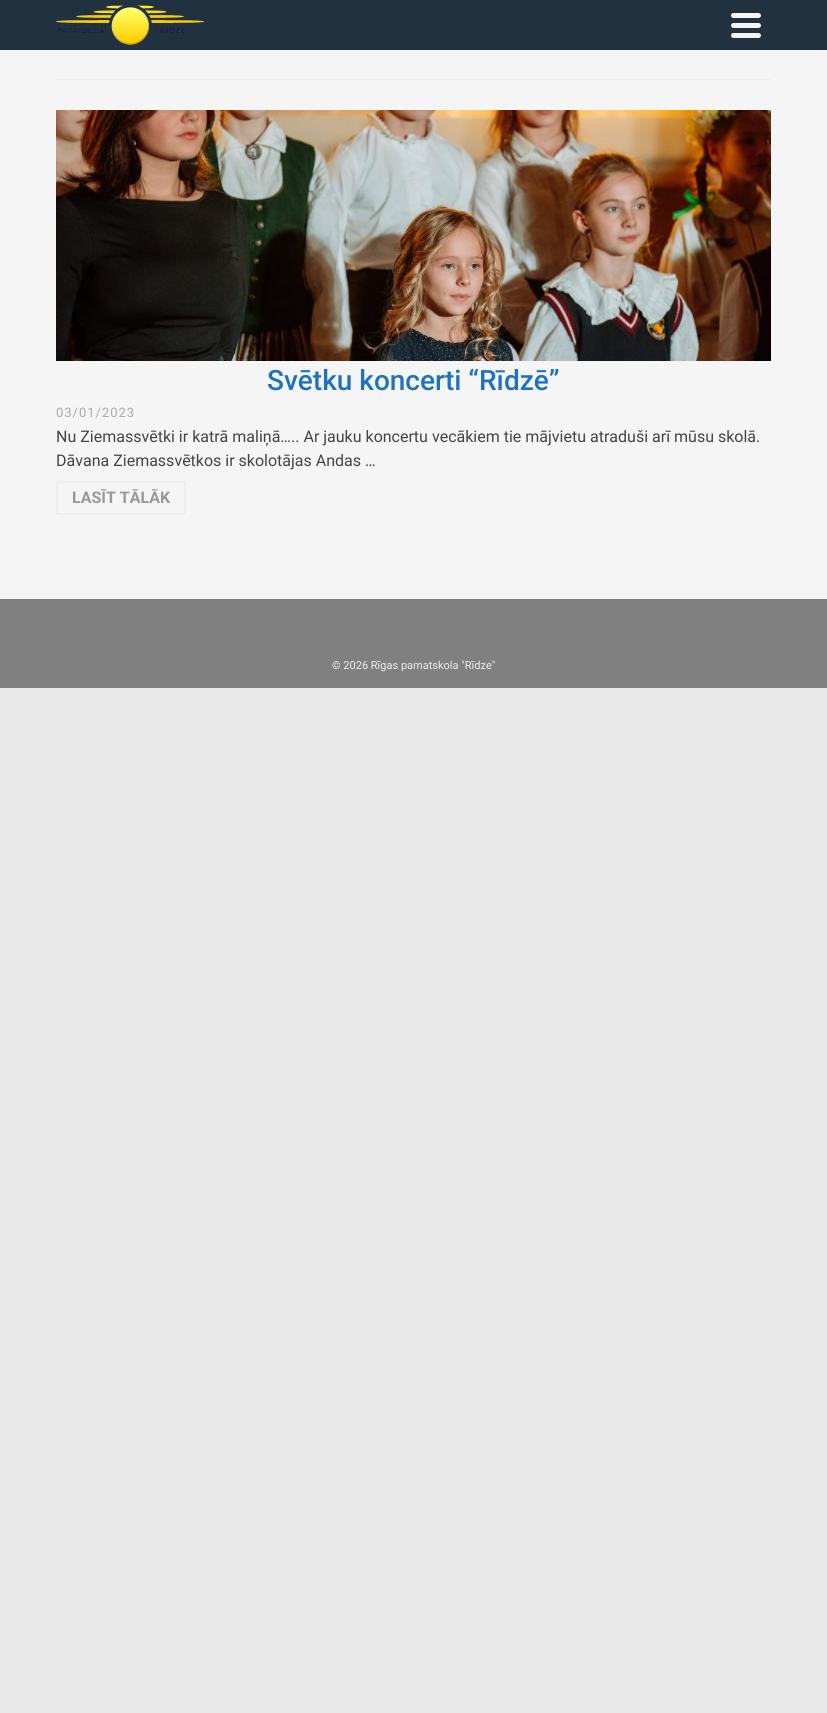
#include <cairo.h>
#include <math.h>
#include <stddef.h>

static cairo_t *ctx;

static void use_color(int r, int g, int b) {
    cairo_set_source_rgb(ctx, r / 255.0, g / 255.0, b / 255.0);
}

static void spaced_text(double x, double y, const char *s, double letter, double word) {
    cairo_move_to(ctx, x, y);
    while (*s) {
        char ch[5] = {0};
        int n = 0;
        do ch[n++] = *s++; while ((*s & 0xC0) == 0x80);
        cairo_show_text(ctx, ch);
        cairo_rel_move_to(ctx, letter + word * (*ch == ' '), 0);
    }
}

static void round_rect(double x, double y, double w, double h, double r) {
    cairo_new_sub_path(ctx);
    cairo_arc(ctx, x + w - r, y + h - r, r, 0, M_PI / 2);
    cairo_arc(ctx, x + r, y + h - r, r, M_PI / 2, M_PI);
    cairo_arc(ctx, x + r, y + r, r, M_PI, 1.5 * M_PI);
    cairo_arc(ctx, x + w - r, y + r, r, 1.5 * M_PI, 2 * M_PI);
    cairo_close_path(ctx);
}

static void picture(const char *path, double x, double y, double w, double h) {
    cairo_surface_t *image = cairo_image_surface_create_from_png(path);
    cairo_save(ctx);
    cairo_set_source_surface(ctx, image, x, y);
    cairo_rectangle(ctx, x, y, w, h);
    cairo_fill(ctx);
    cairo_restore(ctx);
    cairo_surface_destroy(image);
}

int main(void) {
    cairo_surface_t *surface = cairo_image_surface_create(CAIRO_FORMAT_RGB24, 827, 1713);
    ctx = cairo_create(surface);
    cairo_font_options_t *options = cairo_font_options_create();
    cairo_font_options_set_hint_metrics(options, CAIRO_HINT_METRICS_OFF);
    cairo_font_options_set_hint_style(options, CAIRO_HINT_STYLE_NONE);
    cairo_set_font_options(ctx, options);
    cairo_set_miter_limit(ctx, 4);
    use_color(232, 232, 232);
    cairo_paint(ctx);
    use_color(34, 49, 63);
    cairo_rectangle(ctx, 0, 0, 827, 50);
    cairo_fill(ctx);
    picture("img1.png", 56, 5, 149, 40);
    use_color(245, 245, 245);
    round_rect(731, 13, 30, 5, 2.5);
    cairo_fill(ctx);
    round_rect(731, 23, 30, 5, 2.5);
    cairo_fill(ctx);
    round_rect(731, 33, 30, 5, 2.5);
    cairo_fill(ctx);
    cairo_rectangle(ctx, 0, 50, 827, 549);
    cairo_fill(ctx);
    use_color(238, 238, 238);
    cairo_rectangle(ctx, 56, 79, 715, 1);
    cairo_fill(ctx);
    picture("img2.png", 56, 110, 715, 251);
    cairo_select_font_face(ctx, "Roboto Medium", CAIRO_FONT_SLANT_NORMAL, CAIRO_FONT_WEIGHT_NORMAL);
    cairo_set_font_size(ctx, 28);
    use_color(30, 115, 190);
    cairo_move_to(ctx, 267, 390);
    cairo_show_text(ctx, "Svētku koncerti “Rīdzē”");
    cairo_select_font_face(ctx, "Roboto", CAIRO_FONT_SLANT_NORMAL, CAIRO_FONT_WEIGHT_NORMAL);
    cairo_set_font_size(ctx, 13);
    use_color(170, 170, 170);
    spaced_text(56, 417, "03/01/2023", 1, 0);
    cairo_set_font_size(ctx, 16);
    use_color(68, 68, 68);
    cairo_move_to(ctx, 56, 442);
    cairo_show_text(ctx, "Nu Ziemassvētki ir katrā maliņā….. Ar jauku koncertu vecākiem tie mājvietu atraduši arī mūsu skolā.");
    cairo_move_to(ctx, 56, 466);
    cairo_show_text(ctx, "Dāvana Ziemassvētkos ir skolotājas Andas …");
    cairo_rectangle(ctx, 57, 482, 128, 32);
    use_color(238, 238, 238);
    cairo_stroke(ctx);
    cairo_select_font_face(ctx, "Roboto", CAIRO_FONT_SLANT_NORMAL, CAIRO_FONT_WEIGHT_BOLD);
    use_color(153, 153, 153);
    cairo_move_to(ctx, 72, 503);
    cairo_show_text(ctx, "LASĪT TĀLĀK");
    use_color(128, 128, 128);
    cairo_rectangle(ctx, 0, 599, 827, 89);
    cairo_fill(ctx);
    cairo_select_font_face(ctx, "Roboto", CAIRO_FONT_SLANT_NORMAL, CAIRO_FONT_WEIGHT_NORMAL);
    cairo_set_font_size(ctx, 11);
    use_color(238, 238, 238);
    cairo_move_to(ctx, 332, 669);
    cairo_show_text(ctx, "© 2026 Rīgas pamatskola \"Rīdze\"");
    cairo_surface_write_to_png(surface, "result.png");
    cairo_font_options_destroy(options);
    cairo_destroy(ctx);
    cairo_surface_destroy(surface);
    return 0;
}
